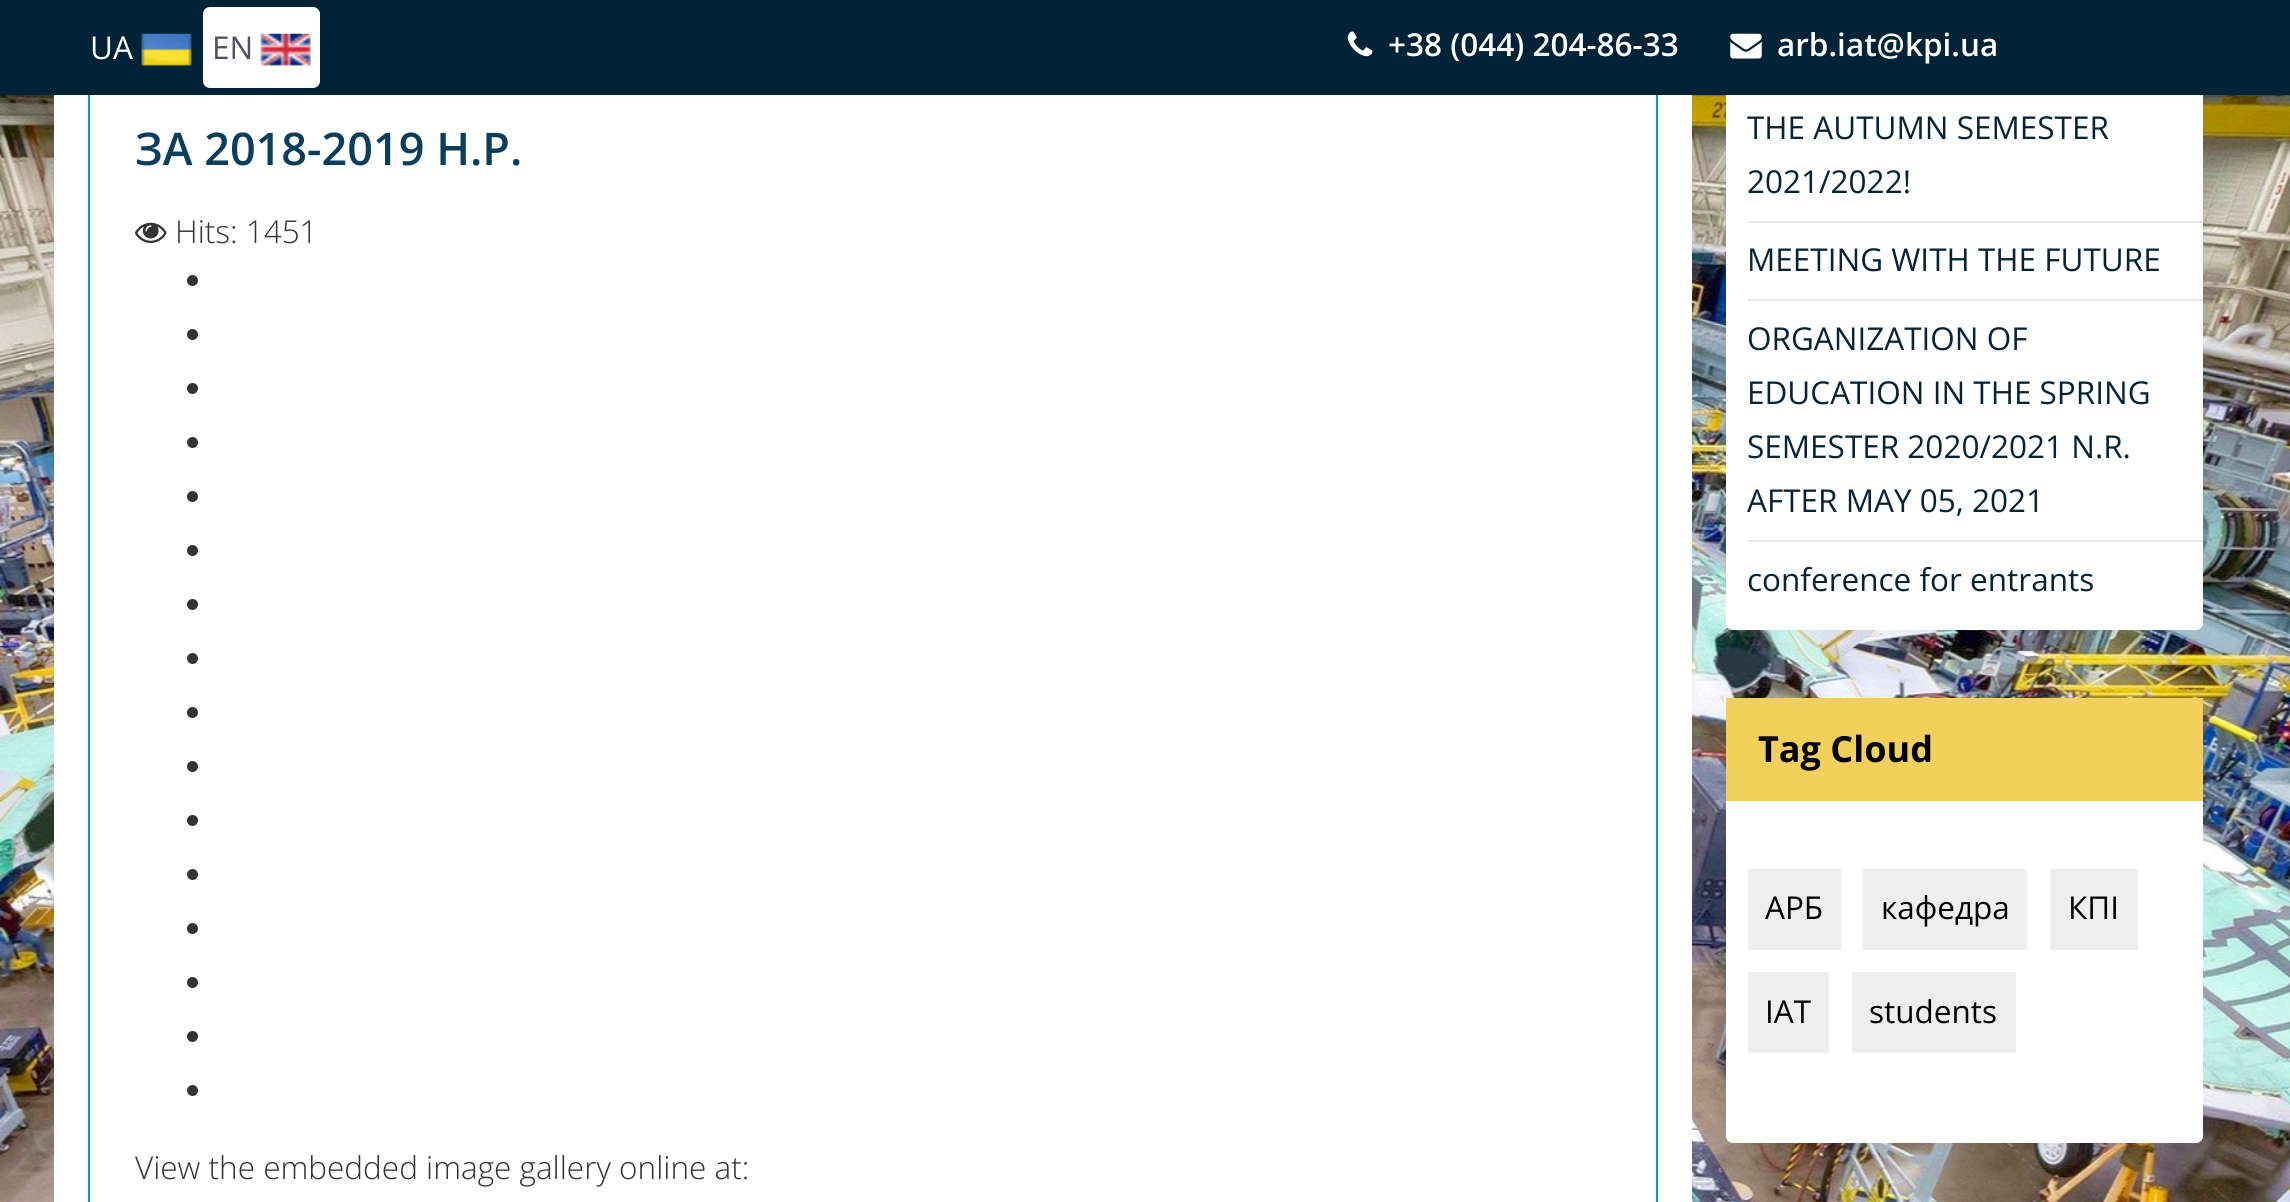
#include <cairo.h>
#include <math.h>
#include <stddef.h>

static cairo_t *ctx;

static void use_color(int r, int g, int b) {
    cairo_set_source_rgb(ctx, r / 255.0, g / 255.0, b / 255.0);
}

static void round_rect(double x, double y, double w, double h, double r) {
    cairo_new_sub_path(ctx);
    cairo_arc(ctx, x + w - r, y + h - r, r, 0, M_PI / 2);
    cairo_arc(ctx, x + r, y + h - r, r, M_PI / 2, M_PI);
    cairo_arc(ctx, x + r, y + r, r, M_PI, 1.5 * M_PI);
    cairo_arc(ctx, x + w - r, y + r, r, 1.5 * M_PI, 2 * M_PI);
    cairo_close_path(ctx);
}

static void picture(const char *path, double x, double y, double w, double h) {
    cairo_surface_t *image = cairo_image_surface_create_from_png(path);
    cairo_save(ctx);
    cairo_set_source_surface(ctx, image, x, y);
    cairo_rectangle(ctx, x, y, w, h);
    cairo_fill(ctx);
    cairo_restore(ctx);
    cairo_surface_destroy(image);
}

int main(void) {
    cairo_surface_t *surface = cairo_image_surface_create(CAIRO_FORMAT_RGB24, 2290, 1202);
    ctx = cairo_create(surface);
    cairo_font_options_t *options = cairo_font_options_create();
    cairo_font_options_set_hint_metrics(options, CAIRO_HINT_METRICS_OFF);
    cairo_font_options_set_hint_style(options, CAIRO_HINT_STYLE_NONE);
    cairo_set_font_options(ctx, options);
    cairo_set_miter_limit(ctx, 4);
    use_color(255, 255, 255);
    cairo_paint(ctx);
    picture("img1.png", 0, 95, 2290, 1107);
    use_color(255, 255, 255);
    cairo_rectangle(ctx, 54, 95, 1638, 1107);
    cairo_fill(ctx);
    cairo_rectangle(ctx, 89, -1, 1568, 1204);
    use_color(0, 157, 210);
    cairo_stroke(ctx);
    use_color(255, 255, 255);
    round_rect(1726, -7, 477, 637, 7);
    cairo_fill(ctx);
    use_color(0, 35, 56);
    cairo_rectangle(ctx, 0, 0, 2290, 95);
    cairo_fill(ctx);
    cairo_select_font_face(ctx, "Open Sans", CAIRO_FONT_SLANT_NORMAL, CAIRO_FONT_WEIGHT_NORMAL);
    cairo_set_font_size(ctx, 31.5);
    use_color(255, 255, 255);
    cairo_move_to(ctx, 90, 59);
    cairo_show_text(ctx, "UA");
    picture("img2.png", 141, 33, 51, 33);
    round_rect(203, 7, 117, 81, 7);
    cairo_fill(ctx);
    use_color(79, 80, 98);
    cairo_move_to(ctx, 212, 59);
    cairo_show_text(ctx, "EN");
    picture("img3.png", 260, 33, 51, 33);
    picture("img4.png", 1347, 31, 26, 26);
    cairo_select_font_face(ctx, "Open Sans SemiBold", CAIRO_FONT_SLANT_NORMAL, CAIRO_FONT_WEIGHT_NORMAL);
    use_color(255, 255, 255);
    cairo_move_to(ctx, 1388, 56);
    cairo_show_text(ctx, "+38 (044) 204-86-33");
    picture("img5.png", 1730, 33, 32, 26);
    cairo_move_to(ctx, 1777, 56);
    cairo_show_text(ctx, "arb.iat@kpi.ua");
    cairo_set_font_size(ctx, 45);
    use_color(9, 62, 95);
    cairo_move_to(ctx, 135, 165);
    cairo_show_text(ctx, "ЗА 2018-2019 Н.Р.");
    picture("img6.png", 135, 222, 32, 21);
    cairo_select_font_face(ctx, "Open Sans Light", CAIRO_FONT_SLANT_NORMAL, CAIRO_FONT_WEIGHT_NORMAL);
    cairo_set_font_size(ctx, 31.5);
    use_color(51, 51, 51);
    cairo_move_to(ctx, 175, 243);
    cairo_show_text(ctx, "Hits: 1451");
    cairo_new_path(ctx);
    cairo_arc(ctx, 192.5, 280.5, 5.5, 0, 2 * M_PI);
    cairo_fill(ctx);
    cairo_arc(ctx, 192.5, 334.5, 5.5, 0, 2 * M_PI);
    cairo_fill(ctx);
    cairo_arc(ctx, 192.5, 388.5, 5.5, 0, 2 * M_PI);
    cairo_fill(ctx);
    cairo_arc(ctx, 192.5, 442.5, 5.5, 0, 2 * M_PI);
    cairo_fill(ctx);
    cairo_arc(ctx, 192.5, 496.5, 5.5, 0, 2 * M_PI);
    cairo_fill(ctx);
    cairo_arc(ctx, 192.5, 550.5, 5.5, 0, 2 * M_PI);
    cairo_fill(ctx);
    cairo_arc(ctx, 192.5, 604.5, 5.5, 0, 2 * M_PI);
    cairo_fill(ctx);
    cairo_arc(ctx, 192.5, 658.5, 5.5, 0, 2 * M_PI);
    cairo_fill(ctx);
    cairo_arc(ctx, 192.5, 712.5, 5.5, 0, 2 * M_PI);
    cairo_fill(ctx);
    cairo_arc(ctx, 192.5, 766.5, 5.5, 0, 2 * M_PI);
    cairo_fill(ctx);
    cairo_arc(ctx, 192.5, 820.5, 5.5, 0, 2 * M_PI);
    cairo_fill(ctx);
    cairo_arc(ctx, 192.5, 874.5, 5.5, 0, 2 * M_PI);
    cairo_fill(ctx);
    cairo_arc(ctx, 192.5, 928.5, 5.5, 0, 2 * M_PI);
    cairo_fill(ctx);
    cairo_arc(ctx, 192.5, 982.5, 5.5, 0, 2 * M_PI);
    cairo_fill(ctx);
    cairo_arc(ctx, 192.5, 1036.5, 5.5, 0, 2 * M_PI);
    cairo_fill(ctx);
    cairo_arc(ctx, 192.5, 1090.5, 5.5, 0, 2 * M_PI);
    cairo_fill(ctx);
    cairo_move_to(ctx, 135, 1179);
    cairo_show_text(ctx, "View the embedded image gallery online at:");
    use_color(232, 232, 232);
    cairo_rectangle(ctx, 1748, 221, 455, 2);
    cairo_fill(ctx);
    cairo_select_font_face(ctx, "Open Sans", CAIRO_FONT_SLANT_NORMAL, CAIRO_FONT_WEIGHT_NORMAL);
    use_color(5, 35, 56);
    cairo_move_to(ctx, 1747, 139);
    cairo_show_text(ctx, "THE AUTUMN SEMESTER");
    cairo_move_to(ctx, 1747, 193);
    cairo_show_text(ctx, "2021/2022!");
    use_color(232, 232, 232);
    cairo_rectangle(ctx, 1748, 299, 455, 2);
    cairo_fill(ctx);
    use_color(5, 35, 56);
    cairo_move_to(ctx, 1747, 271);
    cairo_show_text(ctx, "MEETING WITH THE FUTURE");
    use_color(232, 232, 232);
    cairo_rectangle(ctx, 1748, 540, 455, 2);
    cairo_fill(ctx);
    use_color(5, 35, 56);
    cairo_move_to(ctx, 1747, 350);
    cairo_show_text(ctx, "ORGANIZATION OF");
    cairo_move_to(ctx, 1747, 404);
    cairo_show_text(ctx, "EDUCATION IN THE SPRING");
    cairo_move_to(ctx, 1747, 458);
    cairo_show_text(ctx, "SEMESTER 2020/2021 N.R.");
    cairo_move_to(ctx, 1747, 512);
    cairo_show_text(ctx, "AFTER MAY 05, 2021");
    cairo_move_to(ctx, 1747, 591);
    cairo_show_text(ctx, "conference for entrants");
    use_color(255, 255, 255);
    round_rect(1726, 698, 477, 445, 7);
    cairo_fill(ctx);
    use_color(243, 208, 91);
    cairo_rectangle(ctx, 1726, 698, 477, 103);
    cairo_fill(ctx);
    cairo_select_font_face(ctx, "Open Sans", CAIRO_FONT_SLANT_NORMAL, CAIRO_FONT_WEIGHT_BOLD);
    cairo_set_font_size(ctx, 36);
    use_color(0, 0, 0);
    cairo_move_to(ctx, 1758, 762);
    cairo_show_text(ctx, "Tag Cloud");
    use_color(238, 238, 238);
    cairo_rectangle(ctx, 1748, 869, 93, 81);
    cairo_fill(ctx);
    cairo_select_font_face(ctx, "Open Sans", CAIRO_FONT_SLANT_NORMAL, CAIRO_FONT_WEIGHT_NORMAL);
    cairo_set_font_size(ctx, 31.5);
    use_color(0, 0, 0);
    cairo_move_to(ctx, 1765, 919);
    cairo_show_text(ctx, "АРБ");
    use_color(238, 238, 238);
    cairo_rectangle(ctx, 1863, 869, 164, 81);
    cairo_fill(ctx);
    use_color(0, 0, 0);
    cairo_move_to(ctx, 1881, 919);
    cairo_show_text(ctx, "кафедра");
    use_color(238, 238, 238);
    cairo_rectangle(ctx, 2050, 869, 88, 81);
    cairo_fill(ctx);
    use_color(0, 0, 0);
    cairo_move_to(ctx, 2068, 919);
    cairo_show_text(ctx, "КПІ");
    use_color(238, 238, 238);
    cairo_rectangle(ctx, 1748, 972, 81, 81);
    cairo_fill(ctx);
    use_color(0, 0, 0);
    cairo_move_to(ctx, 1765, 1023);
    cairo_show_text(ctx, "IAT");
    use_color(238, 238, 238);
    cairo_rectangle(ctx, 1852, 972, 164, 81);
    cairo_fill(ctx);
    use_color(0, 0, 0);
    cairo_move_to(ctx, 1869, 1023);
    cairo_show_text(ctx, "students");
    cairo_surface_write_to_png(surface, "result.png");
    cairo_font_options_destroy(options);
    cairo_destroy(ctx);
    cairo_surface_destroy(surface);
    return 0;
}
